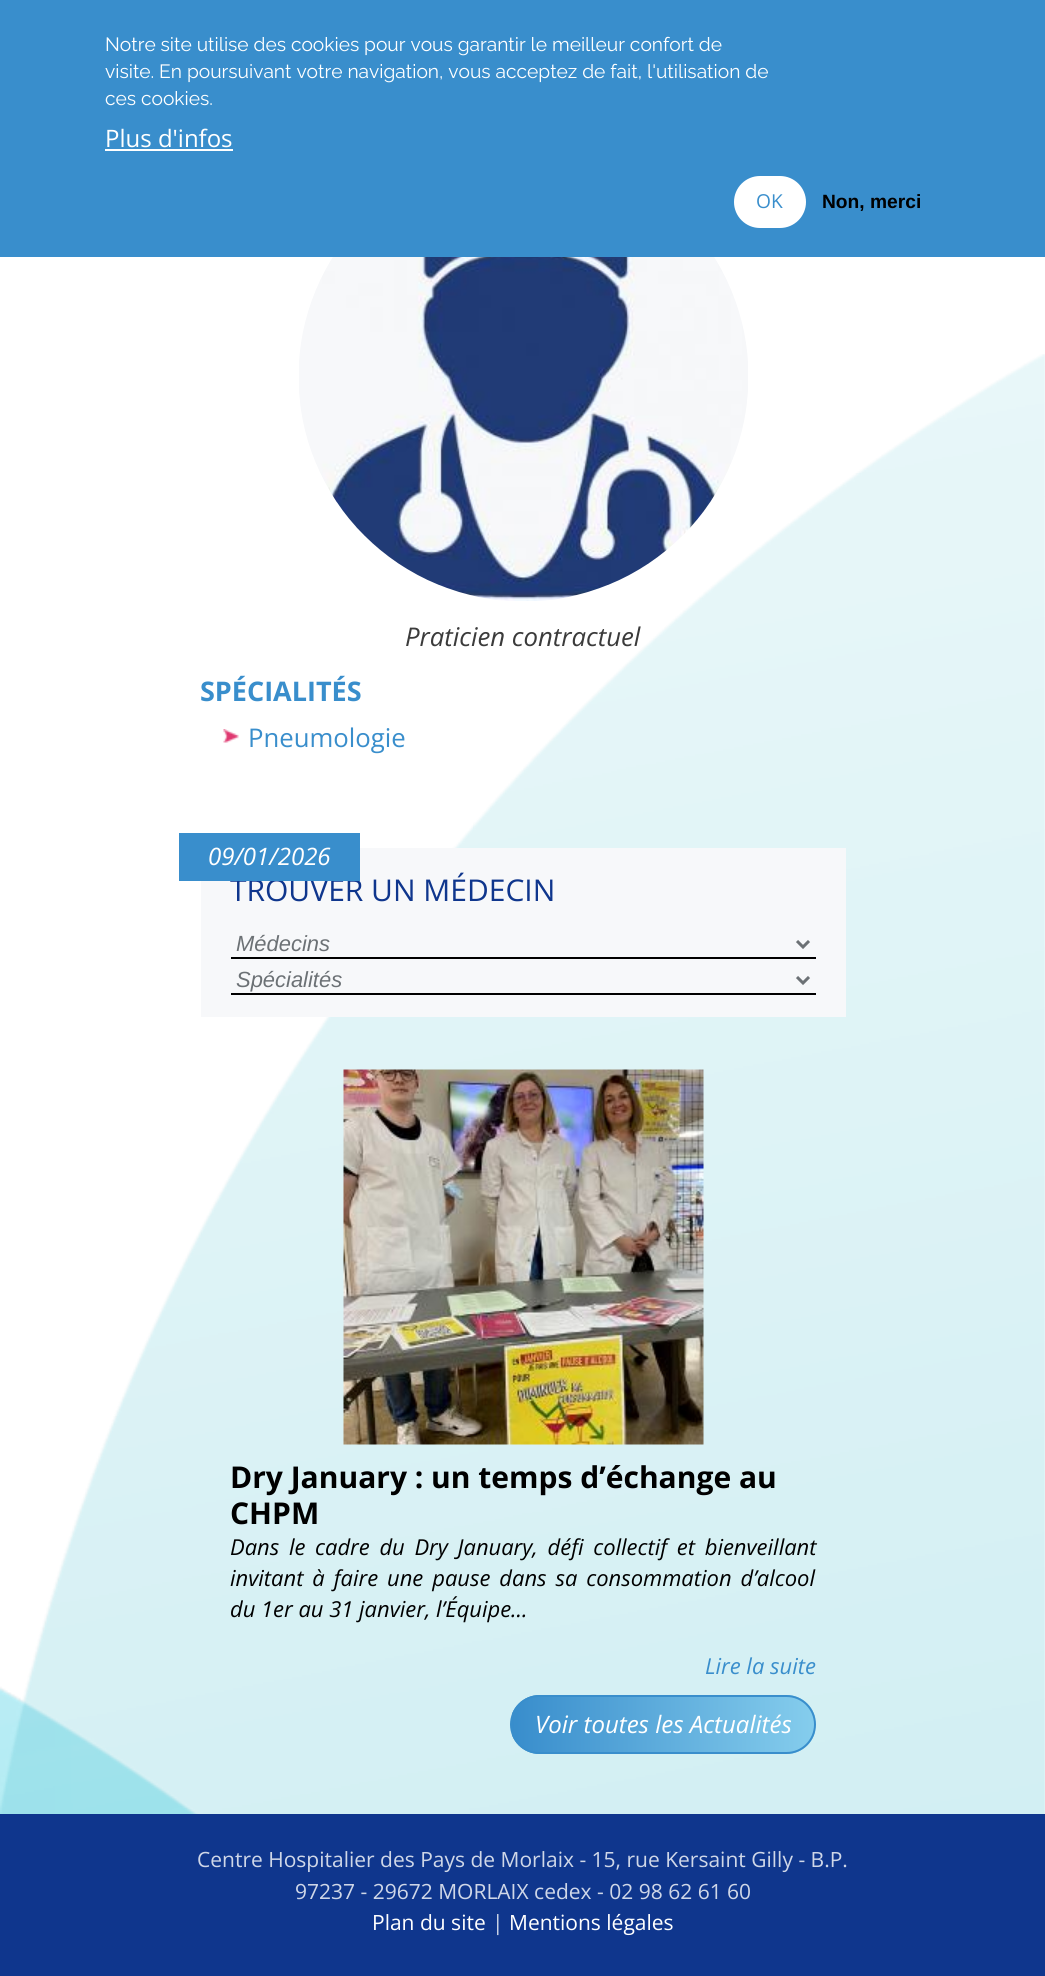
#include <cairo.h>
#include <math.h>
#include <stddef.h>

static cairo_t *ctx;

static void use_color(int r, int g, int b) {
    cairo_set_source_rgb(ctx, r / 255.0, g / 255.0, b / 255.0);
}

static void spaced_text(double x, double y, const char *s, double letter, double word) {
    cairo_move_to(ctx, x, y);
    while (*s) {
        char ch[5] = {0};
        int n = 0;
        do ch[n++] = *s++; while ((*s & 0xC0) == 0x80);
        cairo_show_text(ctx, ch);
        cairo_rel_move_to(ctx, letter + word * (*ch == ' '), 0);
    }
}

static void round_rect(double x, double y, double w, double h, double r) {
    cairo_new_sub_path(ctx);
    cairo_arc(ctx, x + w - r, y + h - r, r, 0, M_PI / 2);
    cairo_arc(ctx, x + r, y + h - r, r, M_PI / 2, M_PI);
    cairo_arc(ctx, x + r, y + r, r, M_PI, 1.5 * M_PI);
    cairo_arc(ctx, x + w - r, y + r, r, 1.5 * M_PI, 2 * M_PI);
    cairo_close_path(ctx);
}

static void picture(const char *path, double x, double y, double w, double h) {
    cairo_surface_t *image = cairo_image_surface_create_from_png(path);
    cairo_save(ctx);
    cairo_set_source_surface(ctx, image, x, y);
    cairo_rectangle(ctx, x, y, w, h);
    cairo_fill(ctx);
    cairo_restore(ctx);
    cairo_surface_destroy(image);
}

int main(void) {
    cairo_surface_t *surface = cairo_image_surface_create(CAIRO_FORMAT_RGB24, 1045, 1976);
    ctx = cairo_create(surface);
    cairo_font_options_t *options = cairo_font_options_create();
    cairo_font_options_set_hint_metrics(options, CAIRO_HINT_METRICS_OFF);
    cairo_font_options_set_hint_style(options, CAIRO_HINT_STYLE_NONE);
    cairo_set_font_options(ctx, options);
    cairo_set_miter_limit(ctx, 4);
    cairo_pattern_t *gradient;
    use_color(255, 255, 255);
    cairo_paint(ctx);
    use_color(57, 142, 204);
    cairo_rectangle(ctx, 0, 0, 1045, 257);
    cairo_fill(ctx);
    cairo_select_font_face(ctx, "Raleway", CAIRO_FONT_SLANT_NORMAL, CAIRO_FONT_WEIGHT_NORMAL);
    cairo_set_font_size(ctx, 19.2);
    use_color(255, 255, 255);
    cairo_move_to(ctx, 105, 51);
    cairo_show_text(ctx, "Notre site utilise des cookies pour vous garantir le meilleur confort de");
    cairo_move_to(ctx, 105, 78);
    cairo_show_text(ctx, "visite. En poursuivant votre navigation, vous acceptez de fait, l'utilisation de");
    cairo_move_to(ctx, 105, 105);
    cairo_show_text(ctx, "ces cookies.");
    cairo_select_font_face(ctx, "Open Sans", CAIRO_FONT_SLANT_NORMAL, CAIRO_FONT_WEIGHT_NORMAL);
    cairo_set_font_size(ctx, 24);
    cairo_move_to(ctx, 105, 147);
    cairo_show_text(ctx, "Plus d'infos");
    cairo_rectangle(ctx, 105, 149, 128, 2);
    cairo_fill(ctx);
    round_rect(734, 176, 72, 52, 26);
    cairo_fill(ctx);
    cairo_set_font_size(ctx, 19.2);
    use_color(57, 142, 204);
    cairo_move_to(ctx, 756, 208);
    cairo_show_text(ctx, "OK");
    cairo_select_font_face(ctx, "Liberation Sans", CAIRO_FONT_SLANT_NORMAL, CAIRO_FONT_WEIGHT_BOLD);
    use_color(0, 0, 0);
    cairo_move_to(ctx, 822, 208);
    cairo_show_text(ctx, "Non, merci");
    picture("img1.png", 0, 354, 1045, 1460);
    picture("img2.png", 299, 257, 449, 344);
    cairo_select_font_face(ctx, "Open Sans", CAIRO_FONT_SLANT_ITALIC, CAIRO_FONT_WEIGHT_NORMAL);
    cairo_set_font_size(ctx, 25.75);
    use_color(59, 59, 59);
    cairo_move_to(ctx, 405, 646);
    cairo_show_text(ctx, "Praticien contractuel");
    cairo_select_font_face(ctx, "Open Sans", CAIRO_FONT_SLANT_NORMAL, CAIRO_FONT_WEIGHT_BOLD);
    cairo_set_font_size(ctx, 27);
    use_color(57, 142, 204);
    cairo_move_to(ctx, 200, 701);
    cairo_show_text(ctx, "SPÉCIALITÉS");
    picture("img3.png", 223, 729, 16, 14);
    cairo_select_font_face(ctx, "Open Sans", CAIRO_FONT_SLANT_NORMAL, CAIRO_FONT_WEIGHT_NORMAL);
    cairo_set_font_size(ctx, 25.75);
    cairo_move_to(ctx, 248, 747);
    cairo_show_text(ctx, "Pneumologie");
    use_color(247, 248, 250);
    cairo_rectangle(ctx, 201, 848, 645, 169);
    cairo_fill(ctx);
    cairo_set_font_size(ctx, 30);
    use_color(15, 54, 141);
    cairo_move_to(ctx, 230, 901);
    cairo_show_text(ctx, "TROUVER UN MÉDECIN");
    use_color(57, 142, 204);
    cairo_rectangle(ctx, 179, 833, 181, 48);
    cairo_fill(ctx);
    cairo_select_font_face(ctx, "Open Sans", CAIRO_FONT_SLANT_ITALIC, CAIRO_FONT_WEIGHT_NORMAL);
    cairo_set_font_size(ctx, 24);
    use_color(255, 255, 255);
    cairo_move_to(ctx, 208, 865);
    cairo_show_text(ctx, "09/01/2026");
    picture("img4.png", 343, 1069, 361, 376);
    cairo_select_font_face(ctx, "Open Sans", CAIRO_FONT_SLANT_NORMAL, CAIRO_FONT_WEIGHT_BOLD);
    cairo_set_font_size(ctx, 30);
    use_color(0, 0, 0);
    cairo_move_to(ctx, 230, 1488);
    cairo_show_text(ctx, "Dry January : un temps d’échange au");
    cairo_move_to(ctx, 230, 1524);
    cairo_show_text(ctx, "CHPM");
    cairo_select_font_face(ctx, "Open Sans", CAIRO_FONT_SLANT_ITALIC, CAIRO_FONT_WEIGHT_NORMAL);
    cairo_set_font_size(ctx, 21.95);
    spaced_text(230, 1555, "Dans le cadre du Dry January, défi collectif et bienveillant", 0, 4);
    spaced_text(230, 1586, "invitant à faire une pause dans sa consommation d’alcool", 0, 3.25);
    cairo_move_to(ctx, 230, 1617);
    cairo_show_text(ctx, "du 1er au 31 janvier, l’Équipe...");
    use_color(57, 142, 204);
    cairo_move_to(ctx, 705, 1674);
    cairo_show_text(ctx, "Lire la suite");
    cairo_save(ctx);
    round_rect(510, 1695, 306, 59, 29.5);
    cairo_clip(ctx);
    gradient = cairo_pattern_create_linear(512, 1724, 815, 1724);
    cairo_pattern_add_color_stop_rgba(gradient, 0, 0.22, 0.553, 0.8, 1);
    cairo_pattern_add_color_stop_rgba(gradient, 1, 0.522, 0.804, 0.929, 1);
    cairo_set_source(ctx, gradient);
    cairo_pattern_destroy(gradient);
    cairo_rectangle(ctx, 512, 1695, 303, 59);
    cairo_fill(ctx);
    cairo_restore(ctx);
    round_rect(511, 1696, 304, 57, 28.5);
    cairo_stroke(ctx);
    cairo_set_font_size(ctx, 24);
    use_color(255, 255, 255);
    cairo_move_to(ctx, 535, 1733);
    cairo_show_text(ctx, "Voir toutes les Actualités");
    use_color(0, 0, 0);
    cairo_rectangle(ctx, 231, 957, 585, 2);
    cairo_fill(ctx);
    cairo_new_path(ctx);
    cairo_move_to(ctx, 797, 941);
    cairo_line_to(ctx, 803, 947);
    cairo_line_to(ctx, 809, 941);
    use_color(108, 113, 117);
    cairo_set_line_width(ctx, 3);
    cairo_stroke(ctx);
    cairo_select_font_face(ctx, "Liberation Sans", CAIRO_FONT_SLANT_ITALIC, CAIRO_FONT_WEIGHT_NORMAL);
    cairo_set_font_size(ctx, 21.95);
    cairo_move_to(ctx, 236, 951);
    cairo_show_text(ctx, "Médecins");
    use_color(0, 0, 0);
    cairo_rectangle(ctx, 231, 993, 585, 2);
    cairo_fill(ctx);
    cairo_new_path(ctx);
    cairo_move_to(ctx, 797, 977);
    cairo_line_to(ctx, 803, 983);
    cairo_line_to(ctx, 809, 977);
    use_color(108, 113, 117);
    cairo_stroke(ctx);
    cairo_move_to(ctx, 236, 987);
    cairo_show_text(ctx, "Spécialités");
    use_color(15, 54, 141);
    cairo_rectangle(ctx, 0, 1814, 1045, 162);
    cairo_fill(ctx);
    cairo_select_font_face(ctx, "Open Sans", CAIRO_FONT_SLANT_NORMAL, CAIRO_FONT_WEIGHT_NORMAL);
    cairo_set_font_size(ctx, 21);
    use_color(207, 215, 232);
    cairo_move_to(ctx, 197, 1867);
    cairo_show_text(ctx, "Centre Hospitalier des Pays de Morlaix - 15, rue Kersaint Gilly - B.P.");
    cairo_move_to(ctx, 295, 1899);
    cairo_show_text(ctx, "97237 - 29672 MORLAIX cedex - 02 98 62 61 60");
    use_color(255, 255, 255);
    cairo_move_to(ctx, 372, 1930);
    cairo_show_text(ctx, "Plan du site");
    use_color(207, 215, 232);
    cairo_move_to(ctx, 492, 1930);
    cairo_show_text(ctx, "|");
    use_color(255, 255, 255);
    cairo_move_to(ctx, 509, 1930);
    cairo_show_text(ctx, "Mentions légales");
    cairo_surface_write_to_png(surface, "result.png");
    cairo_font_options_destroy(options);
    cairo_destroy(ctx);
    cairo_surface_destroy(surface);
    return 0;
}
